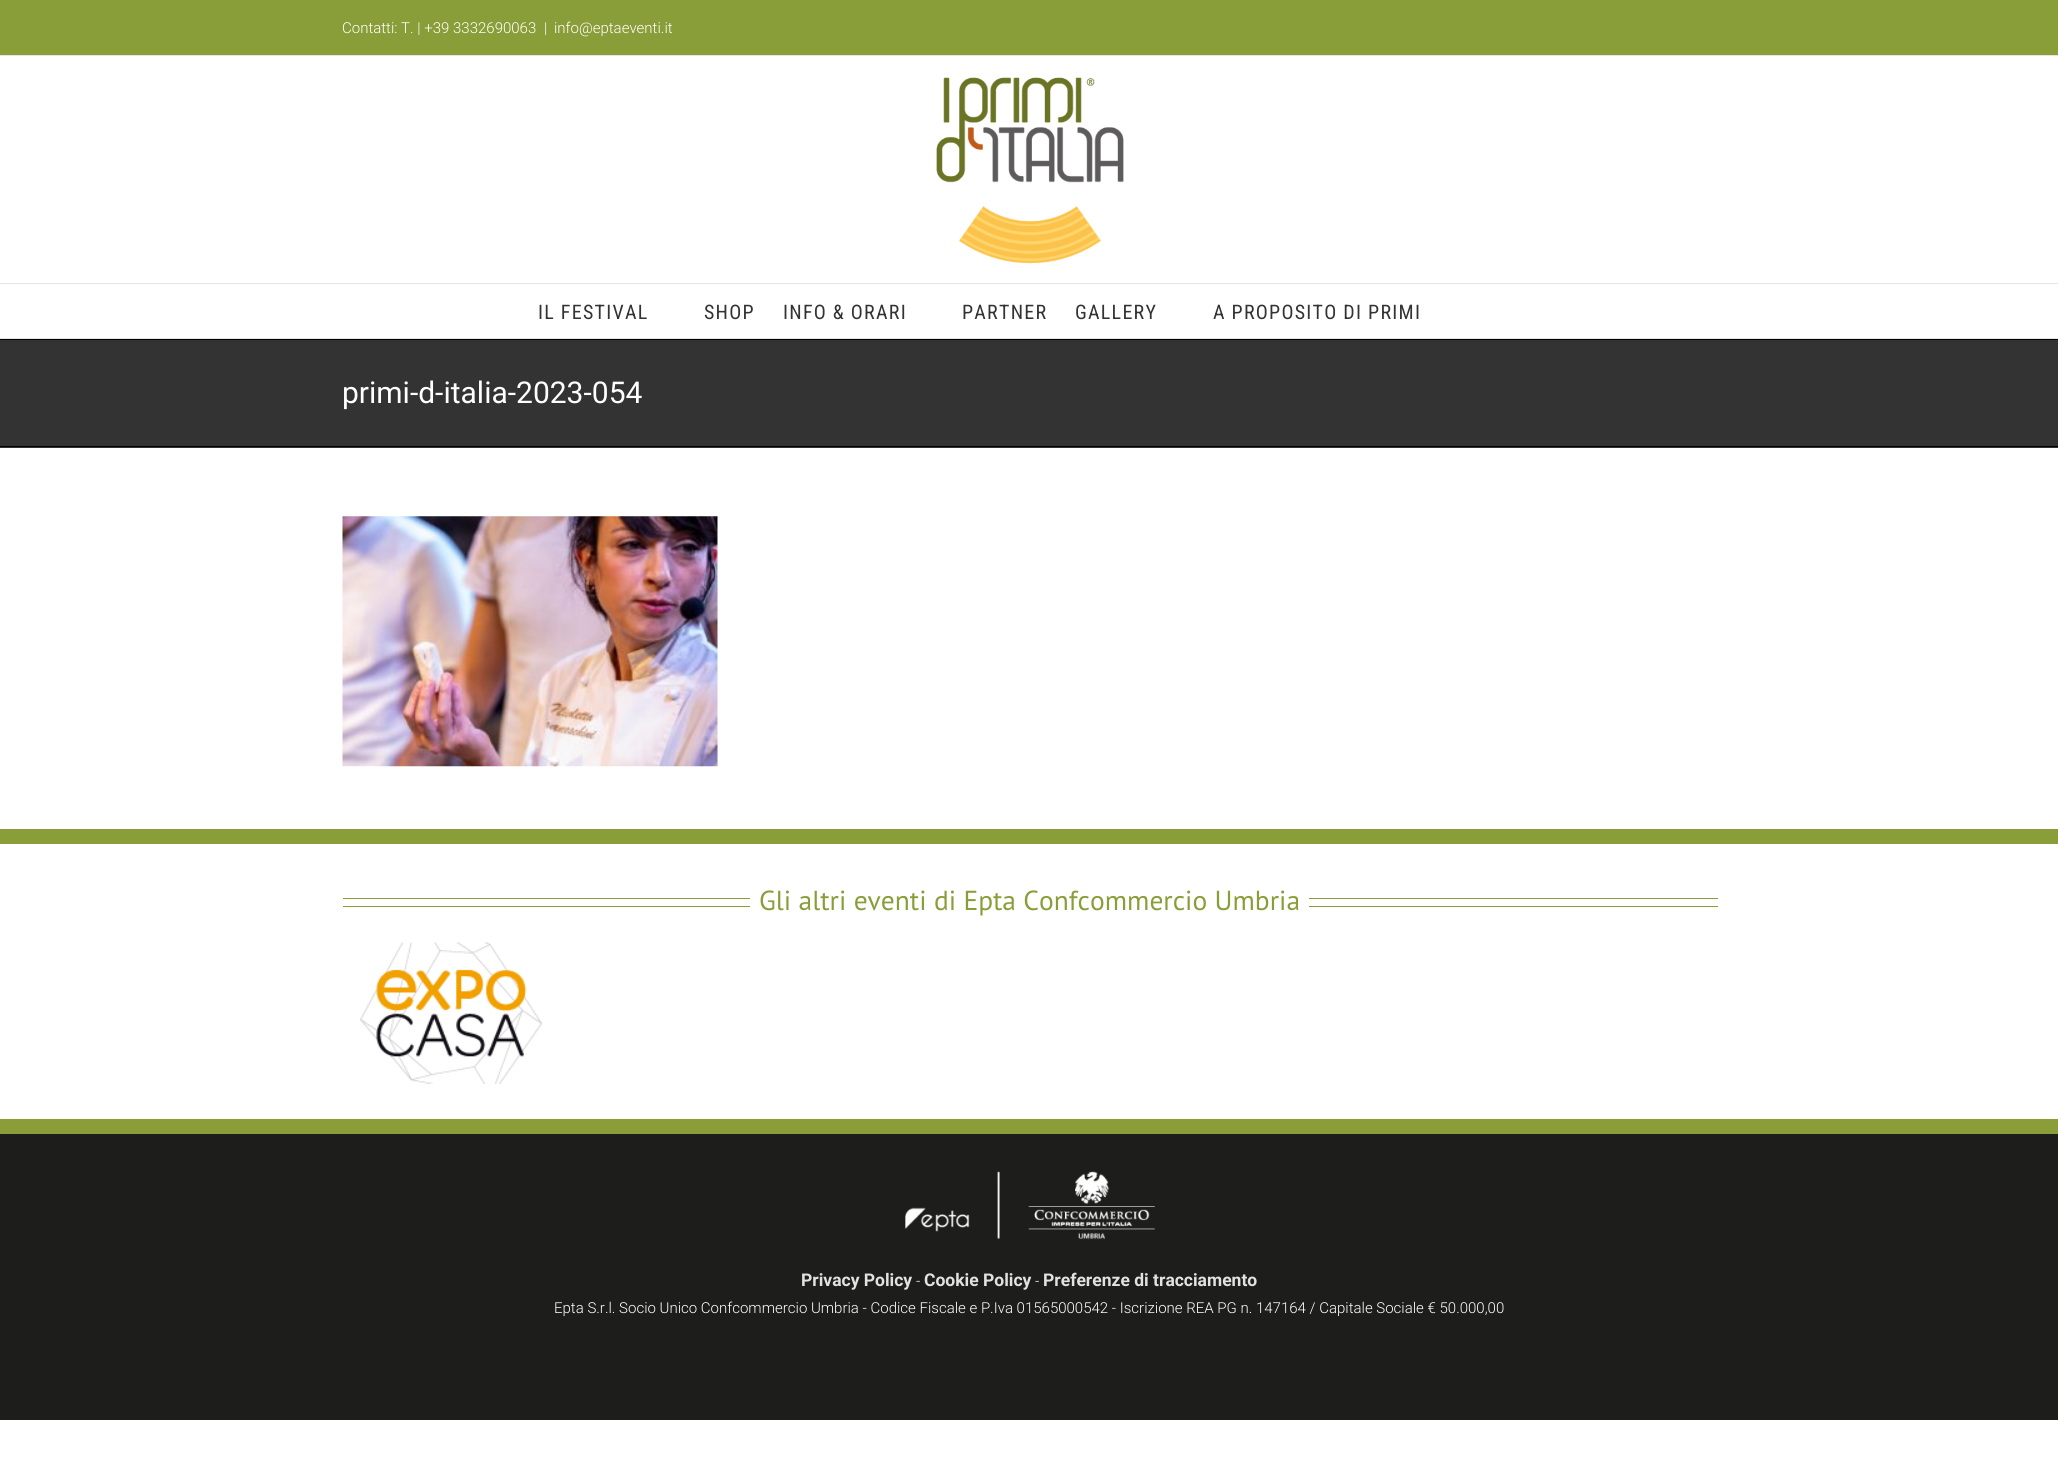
#include <cairo.h>
#include <math.h>
#include <stddef.h>

static cairo_t *ctx;

static void use_color(int r, int g, int b) {
    cairo_set_source_rgb(ctx, r / 255.0, g / 255.0, b / 255.0);
}

static void spaced_text(double x, double y, const char *s, double letter, double word) {
    cairo_move_to(ctx, x, y);
    while (*s) {
        char ch[5] = {0};
        int n = 0;
        do ch[n++] = *s++; while ((*s & 0xC0) == 0x80);
        cairo_show_text(ctx, ch);
        cairo_rel_move_to(ctx, letter + word * (*ch == ' '), 0);
    }
}

static void picture(const char *path, double x, double y, double w, double h) {
    cairo_surface_t *image = cairo_image_surface_create_from_png(path);
    cairo_save(ctx);
    cairo_set_source_surface(ctx, image, x, y);
    cairo_rectangle(ctx, x, y, w, h);
    cairo_fill(ctx);
    cairo_restore(ctx);
    cairo_surface_destroy(image);
}

int main(void) {
    cairo_surface_t *surface = cairo_image_surface_create(CAIRO_FORMAT_RGB24, 2058, 1459);
    ctx = cairo_create(surface);
    cairo_font_options_t *options = cairo_font_options_create();
    cairo_font_options_set_hint_metrics(options, CAIRO_HINT_METRICS_OFF);
    cairo_font_options_set_hint_style(options, CAIRO_HINT_STYLE_NONE);
    cairo_set_font_options(ctx, options);
    cairo_set_miter_limit(ctx, 4);
    use_color(255, 255, 255);
    cairo_paint(ctx);
    use_color(137, 158, 57);
    cairo_rectangle(ctx, 0, 0, 2058, 55);
    cairo_fill(ctx);
    use_color(229, 229, 229);
    cairo_rectangle(ctx, 0, 55, 2058, 1);
    cairo_fill(ctx);
    cairo_select_font_face(ctx, "Roboto Light", CAIRO_FONT_SLANT_NORMAL, CAIRO_FONT_WEIGHT_NORMAL);
    cairo_set_font_size(ctx, 15);
    use_color(255, 255, 255);
    cairo_move_to(ctx, 342, 33);
    cairo_show_text(ctx, "Contatti: T. | +39 3332690063");
    cairo_move_to(ctx, 544, 33);
    cairo_show_text(ctx, "|");
    cairo_move_to(ctx, 554, 33);
    cairo_show_text(ctx, "info@eptaeventi.it");
    use_color(229, 229, 229);
    cairo_rectangle(ctx, 0, 283, 2058, 1);
    cairo_fill(ctx);
    picture("img1.png", 936, 77, 188, 187);
    cairo_rectangle(ctx, 0, 338, 2058, 1);
    cairo_fill(ctx);
    cairo_select_font_face(ctx, "Roboto Condensed", CAIRO_FONT_SLANT_NORMAL, CAIRO_FONT_WEIGHT_NORMAL);
    cairo_set_font_size(ctx, 20);
    use_color(51, 51, 51);
    spaced_text(538, 319, "IL FESTIVAL", 1.25, 0);
    spaced_text(704, 319, "SHOP", 1.25, 0);
    spaced_text(783, 319, "INFO & ORARI", 1.25, 0);
    spaced_text(962, 319, "PARTNER", 1.25, 0);
    spaced_text(1075, 319, "GALLERY", 1.25, 0);
    spaced_text(1213, 319, "A PROPOSITO DI PRIMI", 1.25, 0);
    cairo_rectangle(ctx, 0, 340, 2058, 108);
    cairo_fill(ctx);
    use_color(0, 0, 0);
    cairo_rectangle(ctx, 0, 339, 2058, 1);
    cairo_fill(ctx);
    cairo_rectangle(ctx, 0, 446, 2058, 1);
    cairo_fill(ctx);
    cairo_select_font_face(ctx, "Roboto", CAIRO_FONT_SLANT_NORMAL, CAIRO_FONT_WEIGHT_NORMAL);
    cairo_set_font_size(ctx, 30);
    use_color(255, 255, 255);
    cairo_move_to(ctx, 342, 403);
    cairo_show_text(ctx, "primi-d-italia-2023-054");
    picture("img2.png", 342, 516, 376, 251);
    use_color(137, 158, 57);
    cairo_rectangle(ctx, 0, 829, 2058, 15);
    cairo_fill(ctx);
    cairo_rectangle(ctx, 343, 898, 407, 1);
    cairo_fill(ctx);
    cairo_rectangle(ctx, 343, 906, 407, 1);
    cairo_fill(ctx);
    cairo_select_font_face(ctx, "PT Sans", CAIRO_FONT_SLANT_NORMAL, CAIRO_FONT_WEIGHT_NORMAL);
    cairo_set_font_size(ctx, 27.5);
    cairo_move_to(ctx, 759, 910);
    cairo_show_text(ctx, "Gli altri eventi di Epta Confcommercio Umbria");
    cairo_rectangle(ctx, 1309, 898, 409, 1);
    cairo_fill(ctx);
    cairo_rectangle(ctx, 1309, 906, 409, 1);
    cairo_fill(ctx);
    picture("img3.png", 360, 942, 183, 142);
    use_color(29, 29, 27);
    cairo_rectangle(ctx, 0, 1134, 2058, 286);
    cairo_fill(ctx);
    use_color(137, 158, 57);
    cairo_rectangle(ctx, 0, 1119, 2058, 15);
    cairo_fill(ctx);
    picture("img4.png", 905, 1171, 250, 69);
    cairo_select_font_face(ctx, "Roboto", CAIRO_FONT_SLANT_NORMAL, CAIRO_FONT_WEIGHT_BOLD);
    cairo_set_font_size(ctx, 17.5);
    use_color(226, 226, 226);
    cairo_move_to(ctx, 801, 1286);
    cairo_show_text(ctx, "Privacy Policy");
    cairo_select_font_face(ctx, "Roboto Light", CAIRO_FONT_SLANT_NORMAL, CAIRO_FONT_WEIGHT_NORMAL);
    cairo_set_font_size(ctx, 15);
    use_color(255, 255, 255);
    cairo_move_to(ctx, 916, 1286);
    cairo_show_text(ctx, "-");
    cairo_select_font_face(ctx, "Roboto", CAIRO_FONT_SLANT_NORMAL, CAIRO_FONT_WEIGHT_BOLD);
    cairo_set_font_size(ctx, 17.5);
    use_color(226, 226, 226);
    cairo_move_to(ctx, 924, 1286);
    cairo_show_text(ctx, "Cookie Policy");
    cairo_select_font_face(ctx, "Roboto Light", CAIRO_FONT_SLANT_NORMAL, CAIRO_FONT_WEIGHT_NORMAL);
    cairo_set_font_size(ctx, 15);
    use_color(255, 255, 255);
    cairo_move_to(ctx, 1035, 1286);
    cairo_show_text(ctx, "-");
    cairo_select_font_face(ctx, "Roboto", CAIRO_FONT_SLANT_NORMAL, CAIRO_FONT_WEIGHT_BOLD);
    cairo_set_font_size(ctx, 17.5);
    use_color(226, 226, 226);
    cairo_move_to(ctx, 1043, 1286);
    cairo_show_text(ctx, "Preferenze di tracciamento");
    cairo_select_font_face(ctx, "Roboto Light", CAIRO_FONT_SLANT_NORMAL, CAIRO_FONT_WEIGHT_NORMAL);
    cairo_set_font_size(ctx, 15);
    use_color(255, 255, 255);
    cairo_move_to(ctx, 554, 1313);
    cairo_show_text(ctx, "Epta S.r.l. Socio Unico Confcommercio Umbria - Codice Fiscale e P.Iva 01565000542 - Iscrizione REA PG n. 147164 / Capitale Sociale € 50.000,00");
    cairo_surface_write_to_png(surface, "result.png");
    cairo_font_options_destroy(options);
    cairo_destroy(ctx);
    cairo_surface_destroy(surface);
    return 0;
}
